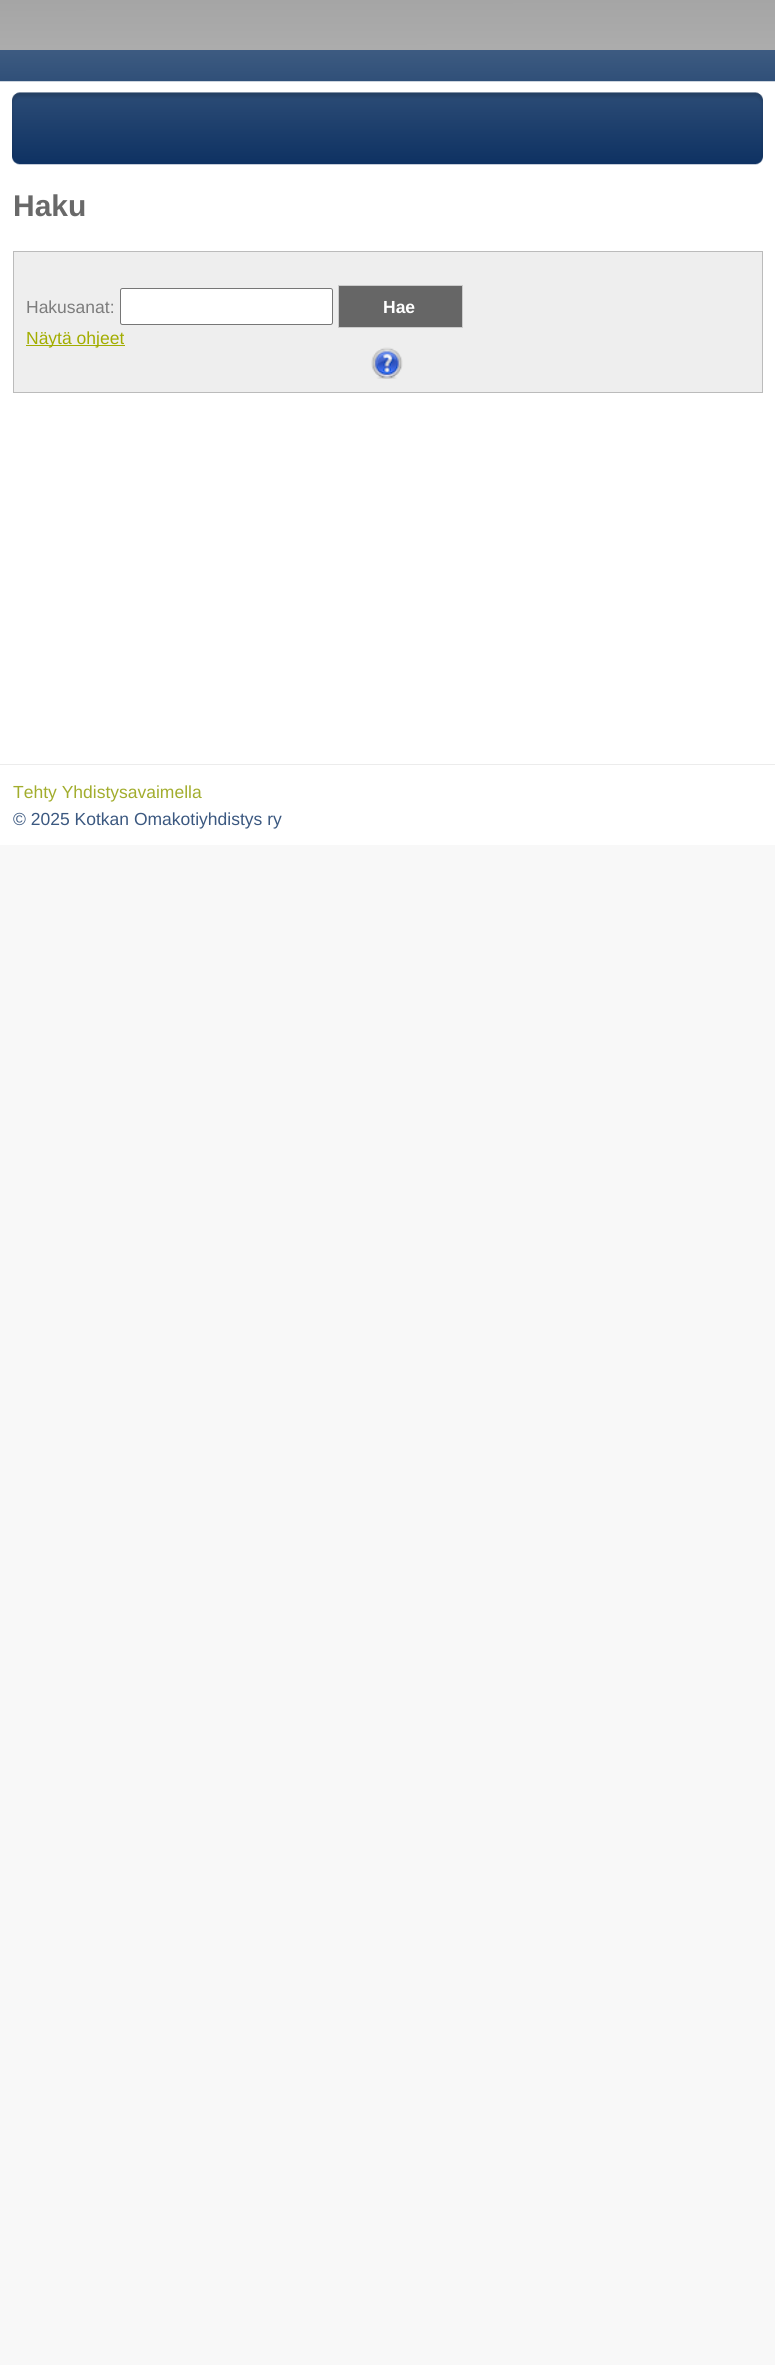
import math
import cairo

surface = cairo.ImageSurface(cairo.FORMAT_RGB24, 775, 2365)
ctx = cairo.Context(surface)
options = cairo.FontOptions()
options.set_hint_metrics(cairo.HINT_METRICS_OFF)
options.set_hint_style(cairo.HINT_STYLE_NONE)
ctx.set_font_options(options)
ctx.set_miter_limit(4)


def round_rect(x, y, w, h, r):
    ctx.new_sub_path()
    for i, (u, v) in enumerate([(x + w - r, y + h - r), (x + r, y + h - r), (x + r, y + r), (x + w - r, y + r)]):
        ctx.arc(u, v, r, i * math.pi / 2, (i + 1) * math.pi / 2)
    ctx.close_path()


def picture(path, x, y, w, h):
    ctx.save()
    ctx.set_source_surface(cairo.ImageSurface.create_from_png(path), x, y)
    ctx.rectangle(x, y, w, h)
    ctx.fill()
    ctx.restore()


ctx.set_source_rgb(1, 1, 1)
ctx.paint()
gradient = cairo.LinearGradient(387, 0, 388, 2365)
gradient.add_color_stop_rgba(0, 0.647, 0.647, 0.647, 1)
gradient.add_color_stop_rgba(0.24, 0.973, 0.973, 0.973, 1)
gradient.add_color_stop_rgba(1, 0.973, 0.973, 0.973, 1)
ctx.set_source(gradient)
ctx.rectangle(0, 0, 775, 2365)
ctx.fill()
gradient = cairo.LinearGradient(388, 50, 388, 199)
gradient.add_color_stop_rgba(0, 0.239, 0.357, 0.506, 1)
gradient.add_color_stop_rgba(1, 0, 0.145, 0.349, 1)
ctx.set_source(gradient)
ctx.rectangle(0, 50, 775, 115)
ctx.fill()
picture("img1.png", 0, 81, 775, 95)
ctx.set_source_rgb(1, 1, 1)
ctx.rectangle(0, 176, 775, 588)
ctx.fill()
ctx.select_font_face("Liberation Sans", cairo.FONT_SLANT_NORMAL, cairo.FONT_WEIGHT_BOLD)
ctx.set_font_size(30)
ctx.set_source_rgb(0.412, 0.412, 0.412)
ctx.move_to(13, 216)
ctx.show_text("Haku")
ctx.set_source_rgb(0.933, 0.933, 0.933)
ctx.rectangle(13.5, 251.5, 749, 141)
ctx.fill_preserve()
ctx.set_source_rgb(0.733, 0.733, 0.733)
ctx.set_line_width(1)
ctx.stroke()
ctx.select_font_face("Liberation Sans")
ctx.set_font_size(17.5)
ctx.set_source_rgb(0.486, 0.486, 0.486)
ctx.move_to(26, 313)
ctx.show_text("Hakusanat:")
ctx.set_source_rgb(1, 1, 1)
round_rect(120.5, 288.5, 212, 36, 2)
ctx.fill_preserve()
ctx.set_source_rgb(0.463, 0.463, 0.463)
ctx.stroke()
ctx.set_source_rgb(0.4, 0.4, 0.4)
ctx.rectangle(338.5, 285.5, 124, 42)
ctx.fill_preserve()
ctx.set_source_rgb(0.8, 0.8, 0.8)
ctx.stroke()
ctx.select_font_face("Liberation Sans", cairo.FONT_SLANT_NORMAL, cairo.FONT_WEIGHT_BOLD)
ctx.set_source_rgb(1, 1, 1)
ctx.move_to(383, 313)
ctx.show_text("Hae")
ctx.set_source_rgb(0.635, 0.678, 0)
ctx.rectangle(26, 345, 99, 1)
ctx.fill()
ctx.select_font_face("Liberation Sans")
ctx.move_to(26, 344)
ctx.show_text("Näytä ohjeet")
picture("img2.png", 371, 347, 32, 32)
ctx.set_source_rgb(1, 1, 1)
ctx.rectangle(0, 765, 775, 80)
ctx.fill()
ctx.set_source_rgb(0.922, 0.922, 0.922)
ctx.rectangle(0, 764, 775, 1)
ctx.fill()
ctx.set_source_rgb(0.635, 0.678, 0.176)
ctx.move_to(13, 798)
ctx.show_text("Tehty Yhdistysavaimella")
ctx.set_source_rgb(0.231, 0.345, 0.502)
ctx.move_to(13, 825)
ctx.show_text("© 2025 Kotkan Omakotiyhdistys ry")
surface.write_to_png("page.png")
